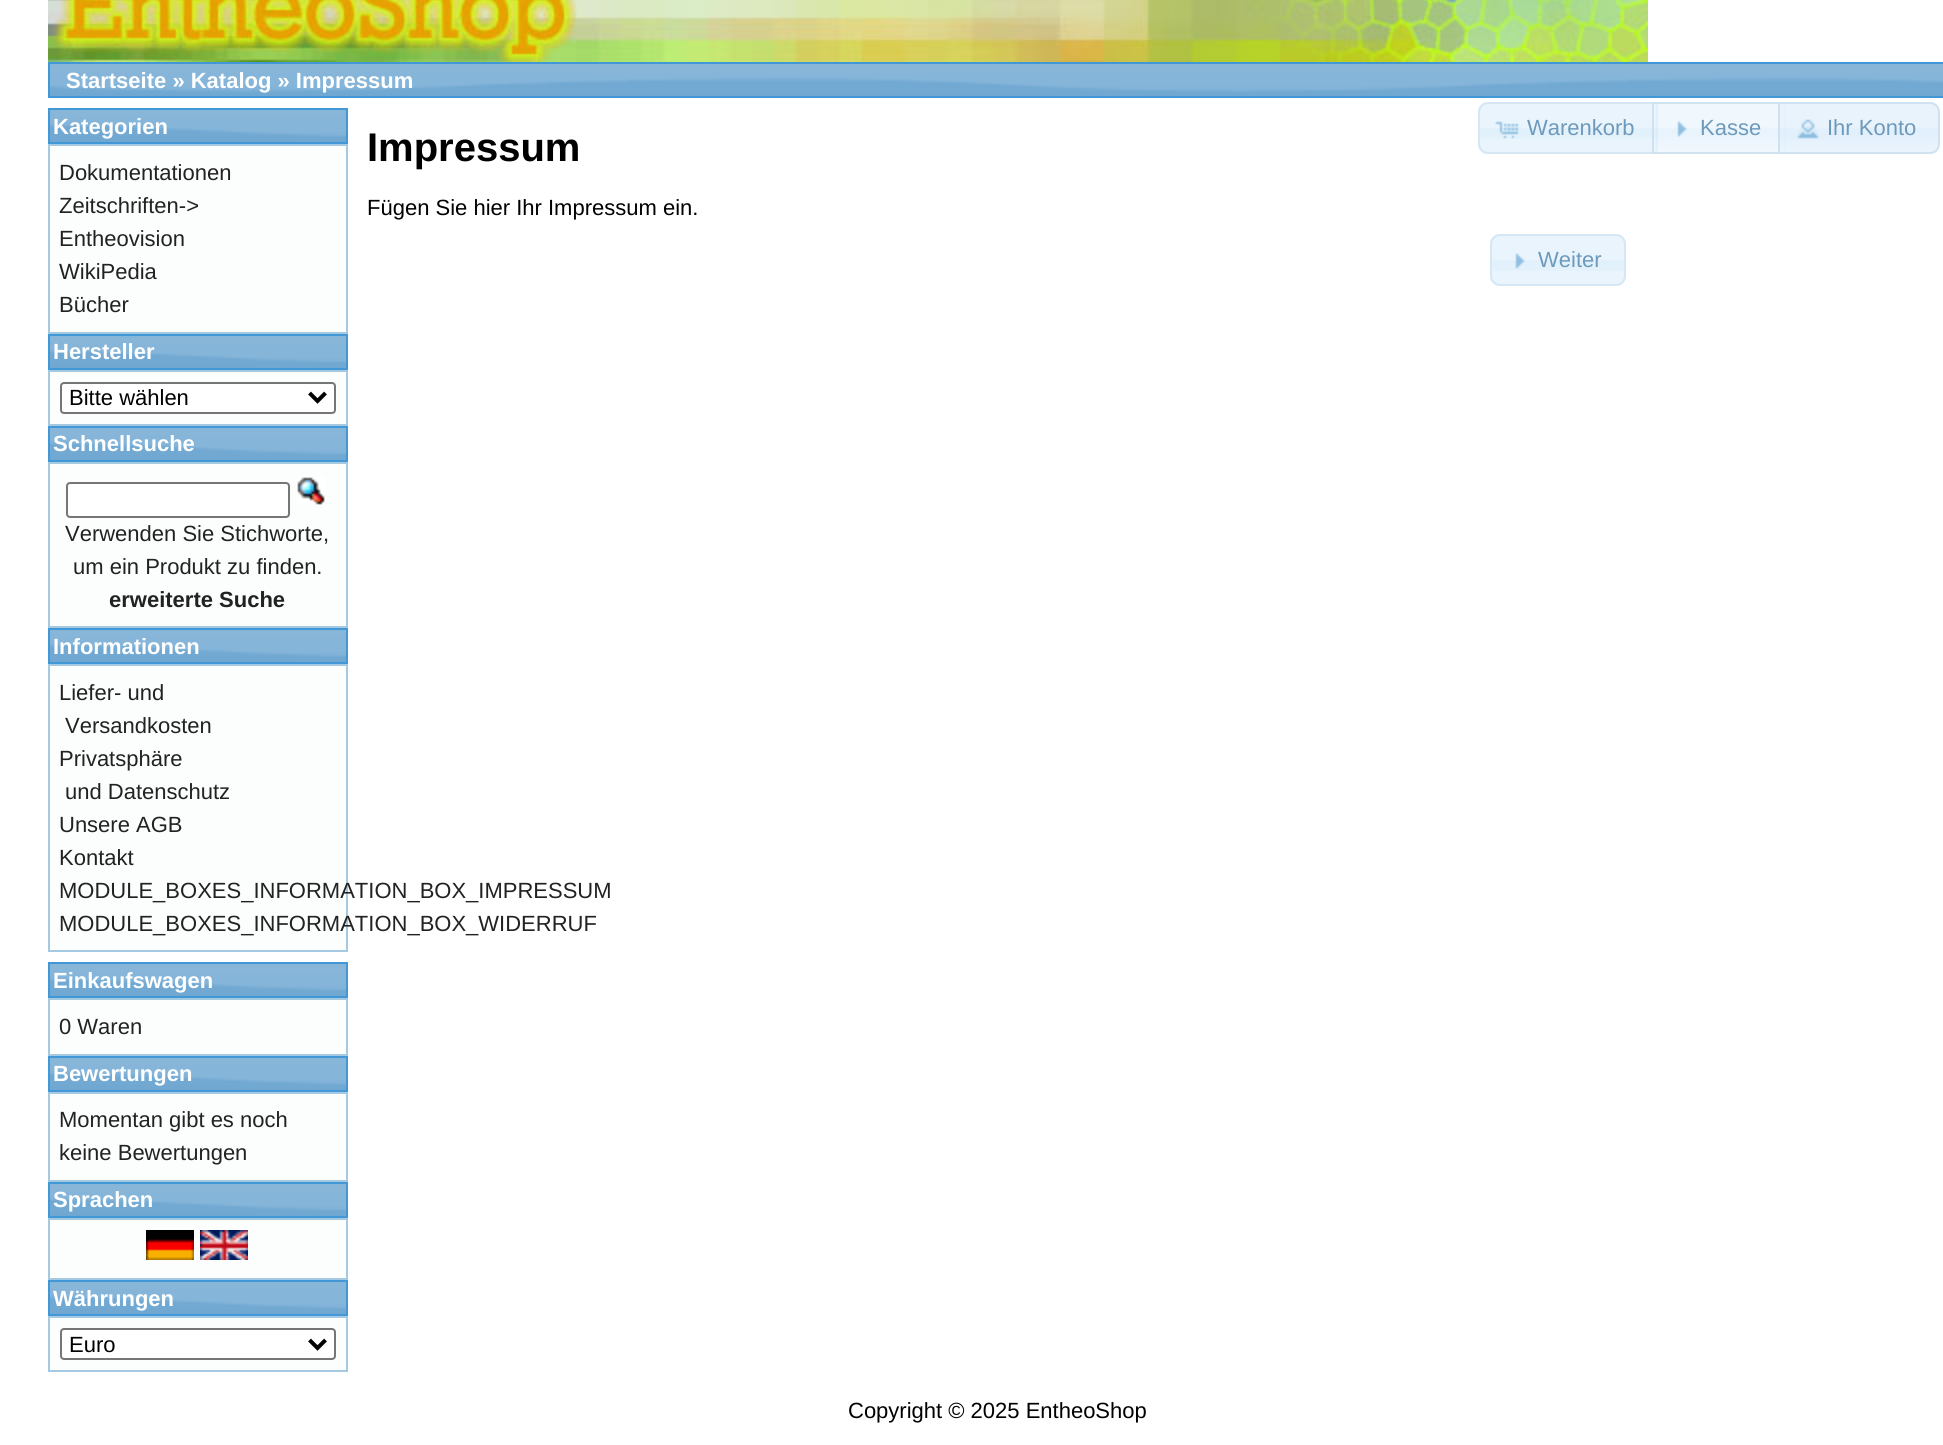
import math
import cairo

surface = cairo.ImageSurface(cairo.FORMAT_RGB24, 1943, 1445)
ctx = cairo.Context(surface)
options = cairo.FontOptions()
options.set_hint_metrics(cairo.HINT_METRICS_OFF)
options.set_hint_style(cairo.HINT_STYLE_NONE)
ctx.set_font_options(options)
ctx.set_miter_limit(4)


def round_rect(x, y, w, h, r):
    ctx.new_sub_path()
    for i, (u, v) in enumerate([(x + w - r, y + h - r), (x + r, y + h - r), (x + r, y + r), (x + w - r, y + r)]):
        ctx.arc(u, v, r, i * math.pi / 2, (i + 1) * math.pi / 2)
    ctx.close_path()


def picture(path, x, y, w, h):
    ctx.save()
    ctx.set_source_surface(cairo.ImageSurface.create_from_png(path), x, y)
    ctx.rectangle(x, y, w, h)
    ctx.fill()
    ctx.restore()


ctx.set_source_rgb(1, 1, 1)
ctx.paint()
picture("img1.png", 50, 64, 1893, 32)
ctx.rectangle(49, 63, 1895, 34)
ctx.set_source_rgb(0.259, 0.592, 0.843)
ctx.stroke()
ctx.select_font_face("Liberation Sans", cairo.FONT_SLANT_NORMAL, cairo.FONT_WEIGHT_BOLD)
ctx.set_font_size(22)
ctx.set_source_rgb(1, 1, 1)
ctx.move_to(66, 88)
ctx.show_text("Startseite » Katalog » Impressum")
picture("img2.png", 50, 110, 296, 32)
ctx.rectangle(49, 109, 298, 34)
ctx.set_source_rgb(0.259, 0.592, 0.843)
ctx.stroke()
ctx.set_source_rgb(1, 1, 1)
ctx.move_to(53, 134)
ctx.show_text("Kategorien")
ctx.set_source_rgb(0.988, 0.992, 0.992)
ctx.rectangle(49, 145, 298, 188)
ctx.fill_preserve()
ctx.set_source_rgb(0.651, 0.788, 0.886)
ctx.stroke()
ctx.select_font_face("Liberation Sans")
ctx.set_source_rgb(0.133, 0.133, 0.133)
ctx.move_to(59, 180)
ctx.show_text("Dokumentationen")
ctx.move_to(59, 213)
ctx.show_text("Zeitschriften->")
ctx.move_to(59, 246)
ctx.show_text("Entheovision")
ctx.move_to(59, 279)
ctx.show_text("WikiPedia")
ctx.move_to(59, 312)
ctx.show_text("Bücher")
picture("img2.png", 50, 336, 296, 32)
ctx.rectangle(49, 335, 298, 34)
ctx.set_source_rgb(0.259, 0.592, 0.843)
ctx.stroke()
ctx.select_font_face("Liberation Sans", cairo.FONT_SLANT_NORMAL, cairo.FONT_WEIGHT_BOLD)
ctx.set_source_rgb(1, 1, 1)
ctx.move_to(53, 359)
ctx.show_text("Hersteller")
ctx.set_source_rgb(0.988, 0.992, 0.992)
ctx.rectangle(49, 371, 298, 54)
ctx.fill_preserve()
ctx.set_source_rgb(0.651, 0.788, 0.886)
ctx.stroke()
ctx.set_source_rgb(1, 1, 1)
round_rect(61, 383, 274, 30, 3)
ctx.fill_preserve()
ctx.set_source_rgb(0.463, 0.463, 0.463)
ctx.stroke()
ctx.new_path()
ctx.move_to(309.5, 393)
ctx.line_to(317.5, 401)
ctx.line_to(325.5, 393)
ctx.set_source_rgb(0, 0, 0)
ctx.set_line_width(4)
ctx.stroke()
ctx.select_font_face("Liberation Sans")
ctx.move_to(69, 405)
ctx.show_text("Bitte wählen")
picture("img2.png", 50, 428, 296, 32)
ctx.rectangle(49, 427, 298, 34)
ctx.set_source_rgb(0.259, 0.592, 0.843)
ctx.set_line_width(2)
ctx.stroke()
ctx.select_font_face("Liberation Sans", cairo.FONT_SLANT_NORMAL, cairo.FONT_WEIGHT_BOLD)
ctx.set_source_rgb(1, 1, 1)
ctx.move_to(53, 451)
ctx.show_text("Schnellsuche")
ctx.set_source_rgb(0.988, 0.992, 0.992)
ctx.rectangle(49, 463, 298, 164)
ctx.fill_preserve()
ctx.set_source_rgb(0.651, 0.788, 0.886)
ctx.stroke()
ctx.set_source_rgb(1, 1, 1)
round_rect(67, 483, 222, 34, 3)
ctx.fill_preserve()
ctx.set_source_rgb(0.463, 0.463, 0.463)
ctx.stroke()
picture("img3.png", 297, 477, 28, 28)
ctx.select_font_face("Liberation Sans")
ctx.set_source_rgb(0.133, 0.133, 0.133)
ctx.move_to(65, 541)
ctx.show_text("Verwenden Sie Stichworte,")
ctx.move_to(73, 574)
ctx.show_text("um ein Produkt zu finden.")
ctx.select_font_face("Liberation Sans", cairo.FONT_SLANT_NORMAL, cairo.FONT_WEIGHT_BOLD)
ctx.move_to(109, 607)
ctx.show_text("erweiterte Suche")
picture("img2.png", 50, 630, 296, 32)
ctx.rectangle(49, 629, 298, 34)
ctx.set_source_rgb(0.259, 0.592, 0.843)
ctx.stroke()
ctx.set_source_rgb(1, 1, 1)
ctx.move_to(53, 654)
ctx.show_text("Informationen")
ctx.set_source_rgb(0.988, 0.992, 0.992)
ctx.rectangle(49, 665, 298, 286)
ctx.fill_preserve()
ctx.set_source_rgb(0.651, 0.788, 0.886)
ctx.stroke()
ctx.select_font_face("Liberation Sans")
ctx.set_source_rgb(0.133, 0.133, 0.133)
ctx.move_to(59, 700)
ctx.show_text("Liefer- und")
ctx.move_to(65, 733)
ctx.show_text("Versandkosten")
ctx.move_to(59, 766)
ctx.show_text("Privatsphäre")
ctx.move_to(65, 799)
ctx.show_text("und Datenschutz")
ctx.move_to(59, 832)
ctx.show_text("Unsere AGB")
ctx.move_to(59, 865)
ctx.show_text("Kontakt")
ctx.move_to(59, 898)
ctx.show_text("MODULE_BOXES_INFORMATION_BOX_IMPRESSUM")
ctx.move_to(59, 931)
ctx.show_text("MODULE_BOXES_INFORMATION_BOX_WIDERRUF")
picture("img4.png", 48, 0, 1600, 62)
ctx.set_source_rgb(0.914, 0.957, 0.992)
ctx.new_path()
ctx.move_to(1488, 102)
ctx.line_to(1658, 102)
ctx.line_to(1658, 154)
ctx.line_to(1488, 154)
ctx.curve_to(1482.5, 154, 1478, 149.5, 1478, 144)
ctx.line_to(1478, 112)
ctx.curve_to(1478, 106.5, 1482.5, 102, 1488, 102)
ctx.close_path()
ctx.fill()
picture("img5.png", 1480, 128, 176, 11)
ctx.new_path()
ctx.move_to(1488, 103)
ctx.line_to(1657, 103)
ctx.line_to(1657, 153)
ctx.line_to(1488, 153)
ctx.curve_to(1483, 153, 1479, 149, 1479, 144)
ctx.line_to(1479, 112)
ctx.curve_to(1479, 107, 1483, 103, 1488, 103)
ctx.close_path()
ctx.set_source_rgb(0.839, 0.902, 0.949)
ctx.stroke()
picture("img6.png", 1495, 121, 24, 18)
ctx.set_source_rgb(0.427, 0.604, 0.733)
ctx.move_to(1527, 135)
ctx.show_text("Warenkorb")
picture("img7.png", 1652, 102, 134, 52)
ctx.rectangle(1653, 103, 132, 50)
ctx.set_source_rgba(0.773, 0.859, 0.925, 0.7)
ctx.stroke()
picture("img8.png", 1677, 121, 10, 16)
ctx.set_source_rgb(0.427, 0.604, 0.733)
ctx.move_to(1700, 135)
ctx.show_text("Kasse")
ctx.set_source_rgba(0.875, 0.937, 0.988, 0.7)
ctx.new_path()
ctx.move_to(1778, 102)
ctx.line_to(1930, 102)
ctx.curve_to(1935.5, 102, 1940, 106.5, 1940, 112)
ctx.line_to(1940, 144)
ctx.curve_to(1940, 149.5, 1935.5, 154, 1930, 154)
ctx.line_to(1778, 154)
ctx.close_path()
ctx.fill()
picture("img9.png", 1778, 102, 162, 52)
ctx.new_path()
ctx.move_to(1779, 103)
ctx.line_to(1930, 103)
ctx.curve_to(1935, 103, 1939, 107, 1939, 112)
ctx.line_to(1939, 144)
ctx.curve_to(1939, 149, 1935, 153, 1930, 153)
ctx.line_to(1779, 153)
ctx.close_path()
ctx.set_source_rgba(0.773, 0.859, 0.925, 0.7)
ctx.stroke()
picture("img10.png", 1797, 119, 22, 20)
ctx.set_source_rgb(0.427, 0.604, 0.733)
ctx.move_to(1827, 135)
ctx.show_text("Ihr Konto")
ctx.select_font_face("Liberation Sans", cairo.FONT_SLANT_NORMAL, cairo.FONT_WEIGHT_BOLD)
ctx.set_font_size(40)
ctx.set_source_rgb(0, 0, 0)
ctx.move_to(367, 161)
ctx.show_text("Impressum")
ctx.select_font_face("Liberation Sans")
ctx.set_font_size(22)
ctx.move_to(367, 215)
ctx.show_text("Fügen Sie hier Ihr Impressum ein.")
ctx.set_source_rgb(0.914, 0.957, 0.992)
round_rect(1490, 234, 136, 52, 10)
ctx.fill()
picture("img11.png", 1492, 260, 132, 11)
round_rect(1491, 235, 134, 50, 9)
ctx.set_source_rgb(0.839, 0.902, 0.949)
ctx.stroke()
picture("img12.png", 1515, 253, 10, 16)
ctx.set_source_rgb(0.427, 0.604, 0.733)
ctx.move_to(1538, 267)
ctx.show_text("Weiter")
picture("img2.png", 50, 964, 296, 32)
ctx.rectangle(49, 963, 298, 34)
ctx.set_source_rgb(0.259, 0.592, 0.843)
ctx.stroke()
ctx.select_font_face("Liberation Sans", cairo.FONT_SLANT_NORMAL, cairo.FONT_WEIGHT_BOLD)
ctx.set_source_rgb(1, 1, 1)
ctx.move_to(53, 988)
ctx.show_text("Einkaufswagen")
ctx.set_source_rgb(0.988, 0.992, 0.992)
ctx.rectangle(49, 999, 298, 56)
ctx.fill_preserve()
ctx.set_source_rgb(0.651, 0.788, 0.886)
ctx.stroke()
ctx.select_font_face("Liberation Sans")
ctx.set_source_rgb(0.133, 0.133, 0.133)
ctx.move_to(59, 1034)
ctx.show_text("0 Waren")
picture("img2.png", 50, 1058, 296, 32)
ctx.rectangle(49, 1057, 298, 34)
ctx.set_source_rgb(0.259, 0.592, 0.843)
ctx.stroke()
ctx.select_font_face("Liberation Sans", cairo.FONT_SLANT_NORMAL, cairo.FONT_WEIGHT_BOLD)
ctx.set_source_rgb(1, 1, 1)
ctx.move_to(53, 1081)
ctx.show_text("Bewertungen")
ctx.set_source_rgb(0.988, 0.992, 0.992)
ctx.rectangle(49, 1093, 298, 88)
ctx.fill_preserve()
ctx.set_source_rgb(0.651, 0.788, 0.886)
ctx.stroke()
ctx.select_font_face("Liberation Sans")
ctx.set_source_rgb(0.133, 0.133, 0.133)
ctx.move_to(59, 1127)
ctx.show_text("Momentan gibt es noch")
ctx.move_to(59, 1160)
ctx.show_text("keine Bewertungen")
picture("img2.png", 50, 1184, 296, 32)
ctx.rectangle(49, 1183, 298, 34)
ctx.set_source_rgb(0.259, 0.592, 0.843)
ctx.stroke()
ctx.select_font_face("Liberation Sans", cairo.FONT_SLANT_NORMAL, cairo.FONT_WEIGHT_BOLD)
ctx.set_source_rgb(1, 1, 1)
ctx.move_to(53, 1207)
ctx.show_text("Sprachen")
ctx.set_source_rgb(0.988, 0.992, 0.992)
ctx.rectangle(49, 1219, 298, 60)
ctx.fill_preserve()
ctx.set_source_rgb(0.651, 0.788, 0.886)
ctx.stroke()
picture("img13.png", 146, 1230, 48, 30)
picture("img14.png", 200, 1230, 48, 30)
picture("img2.png", 50, 1282, 296, 32)
ctx.rectangle(49, 1281, 298, 34)
ctx.set_source_rgb(0.259, 0.592, 0.843)
ctx.stroke()
ctx.set_source_rgb(1, 1, 1)
ctx.move_to(53, 1306)
ctx.show_text("Währungen")
ctx.set_source_rgb(0.988, 0.992, 0.992)
ctx.rectangle(49, 1317, 298, 54)
ctx.fill_preserve()
ctx.set_source_rgb(0.651, 0.788, 0.886)
ctx.stroke()
ctx.set_source_rgb(1, 1, 1)
round_rect(61, 1329, 274, 30, 3)
ctx.fill_preserve()
ctx.set_source_rgb(0.463, 0.463, 0.463)
ctx.stroke()
ctx.new_path()
ctx.move_to(309.5, 1340)
ctx.line_to(317.5, 1348)
ctx.line_to(325.5, 1340)
ctx.set_source_rgb(0, 0, 0)
ctx.set_line_width(4)
ctx.stroke()
ctx.select_font_face("Liberation Sans")
ctx.move_to(69, 1352)
ctx.show_text("Euro")
ctx.move_to(848, 1418)
ctx.show_text("Copyright © 2025 EntheoShop")
surface.write_to_png("page.png")
